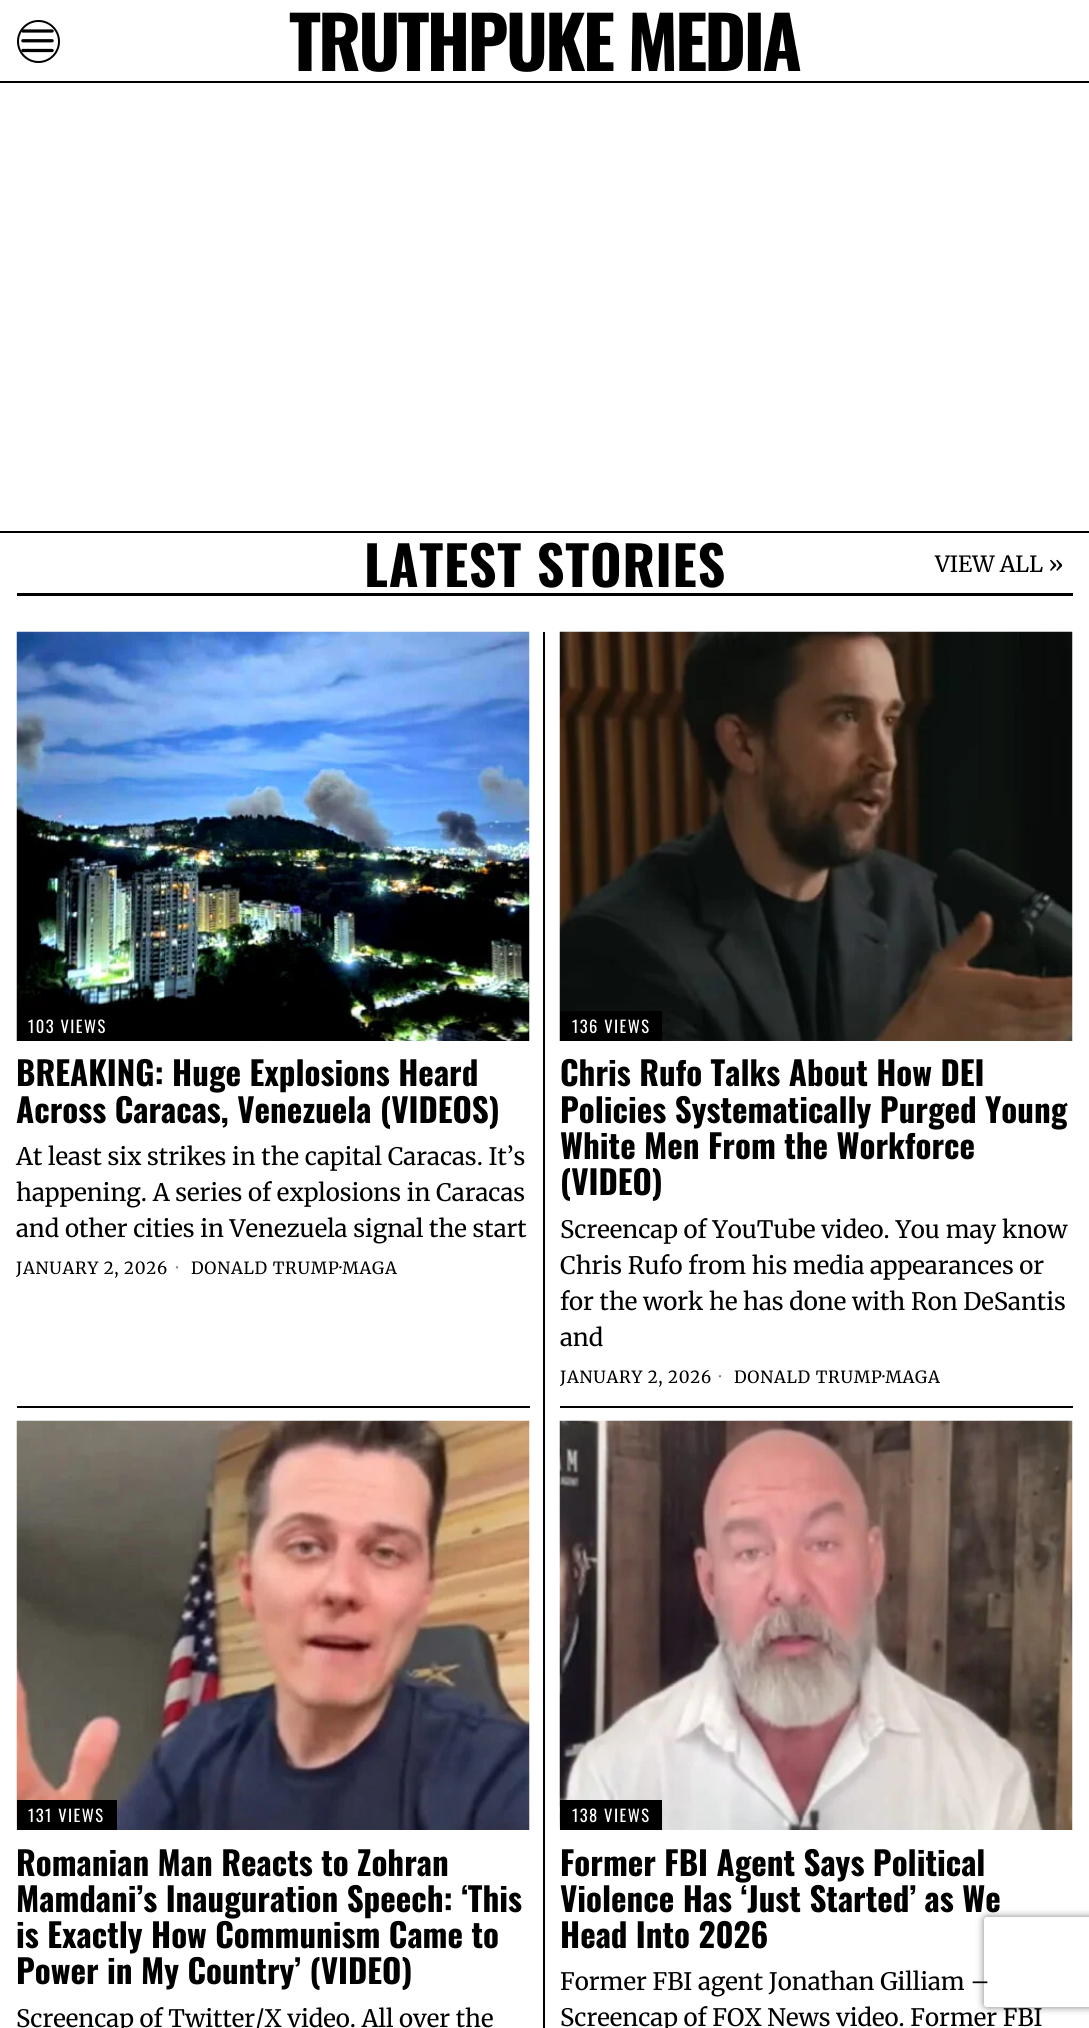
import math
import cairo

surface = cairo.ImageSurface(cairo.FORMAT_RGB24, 1089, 2028)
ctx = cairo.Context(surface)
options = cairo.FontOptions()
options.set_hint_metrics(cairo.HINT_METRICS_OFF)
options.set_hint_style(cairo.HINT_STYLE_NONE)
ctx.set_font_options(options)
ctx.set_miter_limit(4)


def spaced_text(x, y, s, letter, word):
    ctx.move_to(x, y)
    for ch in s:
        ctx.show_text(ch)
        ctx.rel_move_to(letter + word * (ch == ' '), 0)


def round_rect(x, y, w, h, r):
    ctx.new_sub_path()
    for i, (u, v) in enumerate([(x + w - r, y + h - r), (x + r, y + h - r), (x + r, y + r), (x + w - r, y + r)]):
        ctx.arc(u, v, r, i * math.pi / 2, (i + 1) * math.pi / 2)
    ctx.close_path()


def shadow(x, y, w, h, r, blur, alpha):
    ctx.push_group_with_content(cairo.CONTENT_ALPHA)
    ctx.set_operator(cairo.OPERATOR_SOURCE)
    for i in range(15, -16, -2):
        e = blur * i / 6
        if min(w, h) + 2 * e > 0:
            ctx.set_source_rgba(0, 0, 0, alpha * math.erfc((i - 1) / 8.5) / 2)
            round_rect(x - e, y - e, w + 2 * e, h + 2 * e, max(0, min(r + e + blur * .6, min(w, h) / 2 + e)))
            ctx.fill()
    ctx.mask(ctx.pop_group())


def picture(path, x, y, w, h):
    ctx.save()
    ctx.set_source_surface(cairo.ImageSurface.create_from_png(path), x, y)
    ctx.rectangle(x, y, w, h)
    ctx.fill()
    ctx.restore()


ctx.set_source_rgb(1, 1, 1)
ctx.paint()
ctx.set_source_rgb(0, 0, 0)
ctx.rectangle(0, 81, 1089, 2)
ctx.fill()
ctx.arc(38.5, 41.5, 20.5, 0, 2 * math.pi)
ctx.stroke()
picture("img1.png", 21, 29, 33, 24)
ctx.select_font_face("Oswald", cairo.FONT_SLANT_NORMAL, cairo.FONT_WEIGHT_BOLD)
ctx.set_font_size(72)
spaced_text(289, 71, "TRUTHPUKE MEDIA", -3, 0)
ctx.rectangle(0, 531, 1089, 2)
ctx.fill()
ctx.rectangle(17, 593, 1056, 3)
ctx.fill()
ctx.set_font_size(54)
spaced_text(364, 587, "LATEST STORIES", 0.75, 0)
ctx.select_font_face("Merriweather")
ctx.set_font_size(22.25)
ctx.move_to(935, 572)
ctx.show_text("VIEW ALL »")
picture("img2.png", 16, 631, 514, 410)
ctx.select_font_face("Oswald")
ctx.set_font_size(16.5)
ctx.set_source_rgb(1, 1, 1)
spaced_text(28, 1033, "103 VIEWS", 1.5, 0)
ctx.select_font_face("Oswald", cairo.FONT_SLANT_NORMAL, cairo.FONT_WEIGHT_BOLD)
ctx.set_font_size(33)
ctx.set_source_rgb(0, 0, 0)
ctx.move_to(16, 1086)
ctx.show_text("BREAKING: Huge Explosions Heard")
ctx.move_to(16, 1123)
ctx.show_text("Across Caracas, Venezuela (VIDEOS)")
ctx.select_font_face("Merriweather")
ctx.set_font_size(24)
ctx.move_to(16, 1165)
ctx.show_text("At least six strikes in the capital Caracas. It’s")
ctx.move_to(16, 1201)
ctx.show_text("happening. A series of explosions in Caracas")
ctx.move_to(16, 1237)
ctx.show_text("and other cities in Venezuela signal the start")
ctx.set_font_size(16.75)
spaced_text(16, 1274, "JANUARY 2, 2026", 0.75, 0)
ctx.set_source_rgb(0.502, 0.502, 0.502)
spaced_text(176, 1274, "·", 0.75, 0)
ctx.set_source_rgb(0, 0, 0)
spaced_text(191, 1274, "DONALD TRUMP·MAGA", 0.75, 0)
ctx.rectangle(543, 632, 2, 1396)
ctx.fill()
picture("img3.png", 559, 631, 514, 410)
ctx.rectangle(560, 1011, 102, 30)
ctx.fill()
ctx.select_font_face("Oswald")
ctx.set_font_size(16.5)
ctx.set_source_rgb(1, 1, 1)
spaced_text(572, 1033, "136 VIEWS", 1.5, 0)
ctx.select_font_face("Oswald", cairo.FONT_SLANT_NORMAL, cairo.FONT_WEIGHT_BOLD)
ctx.set_font_size(33)
ctx.set_source_rgb(0, 0, 0)
ctx.move_to(560, 1086)
ctx.show_text("Chris Rufo Talks About How DEI")
ctx.move_to(560, 1123)
ctx.show_text("Policies Systematically Purged Young")
ctx.move_to(560, 1159)
ctx.show_text("White Men From the Workforce")
ctx.move_to(560, 1195)
ctx.show_text("(VIDEO)")
ctx.select_font_face("Merriweather")
ctx.set_font_size(24)
ctx.move_to(560, 1238)
ctx.show_text("Screencap of YouTube video. You may know")
ctx.move_to(560, 1274)
ctx.show_text("Chris Rufo from his media appearances or")
ctx.move_to(560, 1310)
ctx.show_text("for the work he has done with Ron DeSantis")
ctx.move_to(560, 1346)
ctx.show_text("and")
ctx.set_font_size(16.75)
spaced_text(560, 1383, "JANUARY 2, 2026", 0.75, 0)
ctx.set_source_rgb(0.502, 0.502, 0.502)
spaced_text(719, 1383, "·", 0.75, 0)
ctx.set_source_rgb(0, 0, 0)
spaced_text(734, 1383, "DONALD TRUMP·MAGA", 0.75, 0)
ctx.rectangle(17, 1406, 513, 2)
ctx.fill()
picture("img4.png", 16, 1420, 514, 410)
ctx.rectangle(17, 1800, 100, 30)
ctx.fill()
ctx.select_font_face("Oswald")
ctx.set_font_size(16.5)
ctx.set_source_rgb(1, 1, 1)
spaced_text(28, 1822, "131 VIEWS", 1.5, 0)
ctx.select_font_face("Oswald", cairo.FONT_SLANT_NORMAL, cairo.FONT_WEIGHT_BOLD)
ctx.set_font_size(33)
ctx.set_source_rgb(0, 0, 0)
ctx.move_to(16, 1876)
ctx.show_text("Romanian Man Reacts to Zohran")
ctx.move_to(16, 1912)
ctx.show_text("Mamdani’s Inauguration Speech: ‘This")
ctx.move_to(16, 1948)
ctx.show_text("is Exactly How Communism Came to")
ctx.move_to(16, 1984)
ctx.show_text("Power in My Country’ (VIDEO)")
ctx.select_font_face("Merriweather")
ctx.set_font_size(24)
ctx.move_to(16, 2027)
ctx.show_text("Screencap of Twitter/X video. All over the")
ctx.rectangle(560, 1406, 513, 2)
ctx.fill()
picture("img5.png", 559, 1420, 514, 410)
ctx.rectangle(560, 1800, 102, 30)
ctx.fill()
ctx.select_font_face("Oswald")
ctx.set_font_size(16.5)
ctx.set_source_rgb(1, 1, 1)
spaced_text(572, 1822, "138 VIEWS", 1.5, 0)
ctx.select_font_face("Oswald", cairo.FONT_SLANT_NORMAL, cairo.FONT_WEIGHT_BOLD)
ctx.set_font_size(33)
ctx.set_source_rgb(0, 0, 0)
ctx.move_to(560, 1876)
ctx.show_text("Former FBI Agent Says Political")
ctx.save()
ctx.set_fill_rule(cairo.FILL_RULE_EVEN_ODD)
ctx.new_path()
ctx.move_to(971, 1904)
ctx.line_to(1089, 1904)
ctx.line_to(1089, 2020)
ctx.line_to(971, 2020)
ctx.close_path()
ctx.move_to(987, 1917)
ctx.line_to(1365, 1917)
ctx.curve_to(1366.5, 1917, 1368, 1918.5, 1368, 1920)
ctx.line_to(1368, 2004)
ctx.curve_to(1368, 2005.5, 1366.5, 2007, 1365, 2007)
ctx.line_to(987, 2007)
ctx.curve_to(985.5, 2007, 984, 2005.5, 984, 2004)
ctx.line_to(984, 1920)
ctx.curve_to(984, 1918.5, 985.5, 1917, 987, 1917)
ctx.close_path()
ctx.clip()
ctx.set_source_rgb(0.502, 0.502, 0.502)
shadow(984, 1917, 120, 90, 3, 4, 1)
ctx.restore()
ctx.move_to(560, 1912)
ctx.show_text("Violence Has ‘Just Started’ as We")
ctx.move_to(560, 1948)
ctx.show_text("Head Into 2026")
ctx.select_font_face("Merriweather")
ctx.set_font_size(24)
ctx.move_to(560, 1990)
ctx.show_text("Former FBI agent Jonathan Gilliam –")
ctx.move_to(560, 2026)
ctx.show_text("Screencap of FOX News video. Former FBI")
surface.write_to_png("page.png")
